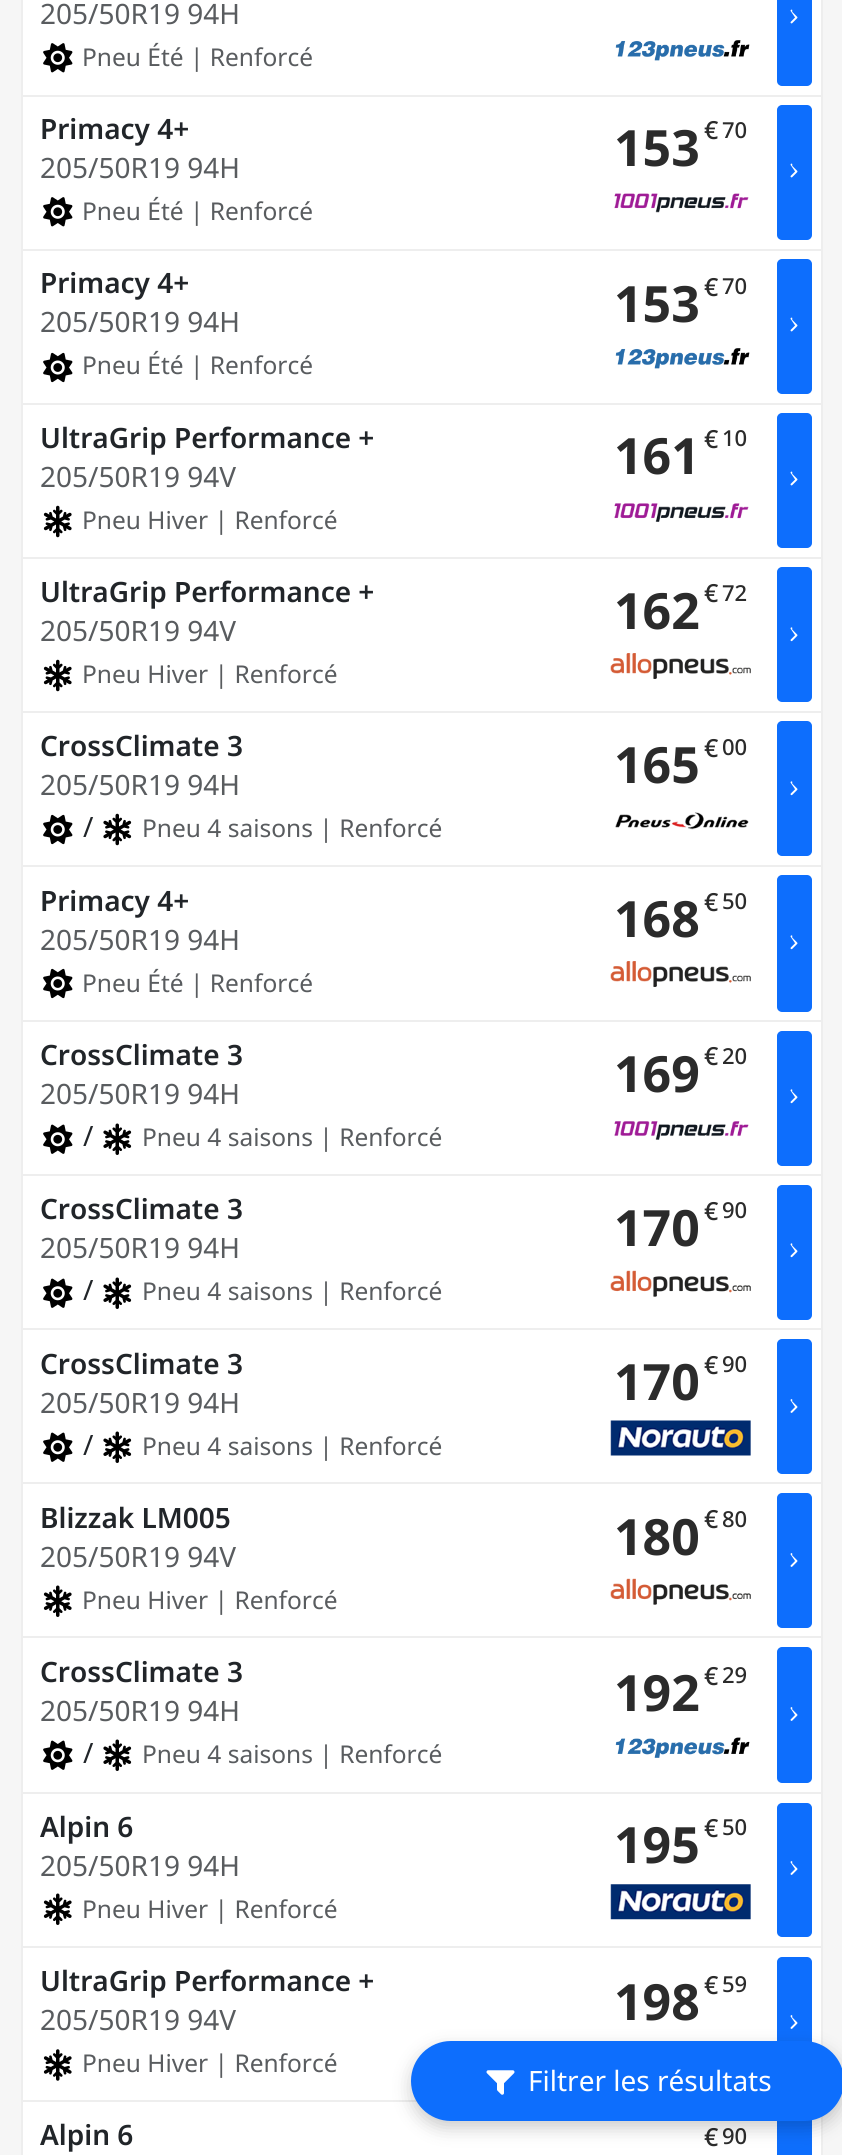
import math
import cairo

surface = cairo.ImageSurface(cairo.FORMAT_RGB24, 842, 2155)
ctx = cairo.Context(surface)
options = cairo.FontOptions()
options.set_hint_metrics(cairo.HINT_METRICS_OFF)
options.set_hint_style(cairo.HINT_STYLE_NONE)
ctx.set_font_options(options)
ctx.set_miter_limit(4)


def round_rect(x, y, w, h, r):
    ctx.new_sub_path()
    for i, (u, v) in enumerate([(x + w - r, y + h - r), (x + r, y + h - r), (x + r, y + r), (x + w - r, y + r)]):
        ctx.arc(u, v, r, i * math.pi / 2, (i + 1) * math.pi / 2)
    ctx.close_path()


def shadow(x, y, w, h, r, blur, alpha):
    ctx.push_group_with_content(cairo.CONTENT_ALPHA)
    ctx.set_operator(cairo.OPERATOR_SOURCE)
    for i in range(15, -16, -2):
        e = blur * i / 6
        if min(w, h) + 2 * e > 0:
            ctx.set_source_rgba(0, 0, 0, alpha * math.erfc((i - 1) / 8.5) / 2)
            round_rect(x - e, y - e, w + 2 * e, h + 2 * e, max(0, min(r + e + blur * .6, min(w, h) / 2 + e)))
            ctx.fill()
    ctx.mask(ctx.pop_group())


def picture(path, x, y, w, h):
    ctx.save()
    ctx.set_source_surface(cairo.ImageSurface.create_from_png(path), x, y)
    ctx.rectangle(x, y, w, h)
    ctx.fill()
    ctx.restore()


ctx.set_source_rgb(0.961, 0.961, 0.961)
ctx.paint()
ctx.set_source_rgb(1, 1, 1)
ctx.rectangle(23, 0, 798, 95)
ctx.fill()
ctx.set_source_rgb(0.933, 0.933, 0.933)
ctx.rectangle(821, 0, 2, 95)
ctx.fill()
ctx.rectangle(21, 0, 2, 95)
ctx.fill()
ctx.select_font_face("Noto Sans")
ctx.set_font_size(28)
ctx.set_source_rgb(0.349, 0.361, 0.373)
ctx.move_to(40, 24)
ctx.show_text("205/50R19 94H")
picture("img1.png", 43, 43, 30, 30)
ctx.set_font_size(24.5)
ctx.move_to(82, 66)
ctx.show_text("Pneu Été | Renforcé")
picture("img2.png", 615, 40, 135, 21)
ctx.set_source_rgb(0.051, 0.431, 0.992)
round_rect(778, -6, 33, 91, 4)
ctx.fill_preserve()
ctx.stroke()
picture("img3.png", 790, 9, 8, 15)
ctx.set_source_rgb(1, 1, 1)
ctx.rectangle(23, 97, 798, 152)
ctx.fill()
ctx.set_source_rgb(0.933, 0.933, 0.933)
ctx.rectangle(21, 95, 802, 2)
ctx.fill()
ctx.rectangle(821, 95, 2, 154)
ctx.fill()
ctx.rectangle(21, 95, 2, 154)
ctx.fill()
ctx.select_font_face("Noto Sans SemiBold")
ctx.set_font_size(28)
ctx.set_source_rgb(0.129, 0.145, 0.161)
ctx.move_to(40, 139)
ctx.show_text("Primacy 4+")
ctx.select_font_face("Noto Sans")
ctx.set_source_rgb(0.349, 0.361, 0.373)
ctx.move_to(40, 178)
ctx.show_text("205/50R19 94H")
picture("img1.png", 43, 197, 30, 30)
ctx.set_font_size(24.5)
ctx.move_to(82, 220)
ctx.show_text("Pneu Été | Renforcé")
ctx.select_font_face("Noto Sans", cairo.FONT_SLANT_NORMAL, cairo.FONT_WEIGHT_BOLD)
ctx.set_font_size(50)
ctx.set_source_rgb(0.169, 0.169, 0.169)
ctx.move_to(614, 166)
ctx.show_text("153")
ctx.select_font_face("Noto Sans Medium")
ctx.set_font_size(25)
ctx.move_to(704, 139)
ctx.show_text("€")
ctx.set_font_size(22)
ctx.move_to(722, 138)
ctx.show_text("70")
picture("img4.png", 614, 193, 135, 20)
ctx.set_source_rgb(0.051, 0.431, 0.992)
round_rect(778, 106, 33, 133, 4)
ctx.fill_preserve()
ctx.stroke()
picture("img3.png", 790, 163, 8, 15)
ctx.set_source_rgb(1, 1, 1)
ctx.rectangle(23, 251, 798, 152)
ctx.fill()
ctx.set_source_rgb(0.933, 0.933, 0.933)
ctx.rectangle(21, 249, 802, 2)
ctx.fill()
ctx.rectangle(821, 249, 2, 154)
ctx.fill()
ctx.rectangle(21, 249, 2, 154)
ctx.fill()
ctx.select_font_face("Noto Sans SemiBold")
ctx.set_font_size(28)
ctx.set_source_rgb(0.129, 0.145, 0.161)
ctx.move_to(40, 293)
ctx.show_text("Primacy 4+")
ctx.select_font_face("Noto Sans")
ctx.set_source_rgb(0.349, 0.361, 0.373)
ctx.move_to(40, 332)
ctx.show_text("205/50R19 94H")
picture("img5.png", 43, 352, 30, 31)
ctx.set_font_size(24.5)
ctx.move_to(82, 374)
ctx.show_text("Pneu Été | Renforcé")
ctx.select_font_face("Noto Sans", cairo.FONT_SLANT_NORMAL, cairo.FONT_WEIGHT_BOLD)
ctx.set_font_size(50)
ctx.set_source_rgb(0.169, 0.169, 0.169)
ctx.move_to(614, 322)
ctx.show_text("153")
ctx.select_font_face("Noto Sans Medium")
ctx.set_font_size(25)
ctx.move_to(704, 296)
ctx.show_text("€")
ctx.set_font_size(22)
ctx.move_to(722, 294)
ctx.show_text("70")
picture("img2.png", 615, 348, 135, 21)
ctx.set_source_rgb(0.051, 0.431, 0.992)
round_rect(778, 260, 33, 133, 4)
ctx.fill_preserve()
ctx.stroke()
picture("img3.png", 790, 317, 8, 15)
ctx.set_source_rgb(1, 1, 1)
ctx.rectangle(23, 405, 798, 152)
ctx.fill()
ctx.set_source_rgb(0.933, 0.933, 0.933)
ctx.rectangle(21, 403, 802, 2)
ctx.fill()
ctx.rectangle(821, 403, 2, 154)
ctx.fill()
ctx.rectangle(21, 403, 2, 154)
ctx.fill()
ctx.select_font_face("Noto Sans SemiBold")
ctx.set_font_size(28)
ctx.set_source_rgb(0.129, 0.145, 0.161)
ctx.move_to(40, 448)
ctx.show_text("UltraGrip Performance +")
ctx.select_font_face("Noto Sans")
ctx.set_source_rgb(0.349, 0.361, 0.373)
ctx.move_to(40, 487)
ctx.show_text("205/50R19 94V")
picture("img6.png", 43, 505, 29, 33)
ctx.set_font_size(24.5)
ctx.move_to(82, 529)
ctx.show_text("Pneu Hiver | Renforcé")
ctx.select_font_face("Noto Sans", cairo.FONT_SLANT_NORMAL, cairo.FONT_WEIGHT_BOLD)
ctx.set_font_size(50)
ctx.set_source_rgb(0.169, 0.169, 0.169)
ctx.move_to(614, 474)
ctx.show_text("161")
ctx.select_font_face("Noto Sans Medium")
ctx.set_font_size(25)
ctx.move_to(704, 448)
ctx.show_text("€")
ctx.set_font_size(22)
ctx.move_to(722, 446)
ctx.show_text("10")
picture("img7.png", 614, 503, 135, 19)
ctx.set_source_rgb(0.051, 0.431, 0.992)
round_rect(778, 414, 33, 133, 4)
ctx.fill_preserve()
ctx.stroke()
picture("img3.png", 790, 471, 8, 15)
ctx.set_source_rgb(1, 1, 1)
ctx.rectangle(23, 559, 798, 152)
ctx.fill()
ctx.set_source_rgb(0.933, 0.933, 0.933)
ctx.rectangle(21, 557, 802, 2)
ctx.fill()
ctx.rectangle(821, 557, 2, 154)
ctx.fill()
ctx.rectangle(21, 557, 2, 154)
ctx.fill()
ctx.select_font_face("Noto Sans SemiBold")
ctx.set_font_size(28)
ctx.set_source_rgb(0.129, 0.145, 0.161)
ctx.move_to(40, 602)
ctx.show_text("UltraGrip Performance +")
ctx.select_font_face("Noto Sans")
ctx.set_source_rgb(0.349, 0.361, 0.373)
ctx.move_to(40, 641)
ctx.show_text("205/50R19 94V")
picture("img6.png", 43, 659, 29, 33)
ctx.set_font_size(24.5)
ctx.move_to(82, 683)
ctx.show_text("Pneu Hiver | Renforcé")
ctx.select_font_face("Noto Sans", cairo.FONT_SLANT_NORMAL, cairo.FONT_WEIGHT_BOLD)
ctx.set_font_size(50)
ctx.set_source_rgb(0.169, 0.169, 0.169)
ctx.move_to(614, 629)
ctx.show_text("162")
ctx.select_font_face("Noto Sans Medium")
ctx.set_font_size(25)
ctx.move_to(704, 602)
ctx.show_text("€")
ctx.set_font_size(22)
ctx.move_to(722, 601)
ctx.show_text("72")
picture("img8.png", 610, 653, 141, 26)
ctx.set_source_rgb(0.051, 0.431, 0.992)
round_rect(778, 568, 33, 133, 4)
ctx.fill_preserve()
ctx.stroke()
picture("img9.png", 790, 627, 8, 15)
ctx.set_source_rgb(1, 1, 1)
ctx.rectangle(23, 713, 798, 152)
ctx.fill()
ctx.set_source_rgb(0.933, 0.933, 0.933)
ctx.rectangle(21, 711, 802, 2)
ctx.fill()
ctx.rectangle(821, 711, 2, 154)
ctx.fill()
ctx.rectangle(21, 711, 2, 154)
ctx.fill()
ctx.select_font_face("Noto Sans SemiBold")
ctx.set_font_size(28)
ctx.set_source_rgb(0.129, 0.145, 0.161)
ctx.move_to(40, 756)
ctx.show_text("CrossClimate 3")
ctx.select_font_face("Noto Sans")
ctx.set_source_rgb(0.349, 0.361, 0.373)
ctx.move_to(40, 795)
ctx.show_text("205/50R19 94H")
picture("img5.png", 43, 814, 30, 31)
ctx.set_source_rgb(0.129, 0.145, 0.161)
ctx.move_to(83, 837)
ctx.show_text("/")
picture("img10.png", 103, 813, 29, 33)
ctx.set_font_size(24.5)
ctx.set_source_rgb(0.349, 0.361, 0.373)
ctx.move_to(142, 837)
ctx.show_text("Pneu 4 saisons | Renforcé")
ctx.select_font_face("Noto Sans", cairo.FONT_SLANT_NORMAL, cairo.FONT_WEIGHT_BOLD)
ctx.set_font_size(50)
ctx.set_source_rgb(0.169, 0.169, 0.169)
ctx.move_to(614, 783)
ctx.show_text("165")
ctx.select_font_face("Noto Sans Medium")
ctx.set_font_size(25)
ctx.move_to(704, 757)
ctx.show_text("€")
ctx.set_font_size(22)
ctx.move_to(722, 755)
ctx.show_text("00")
picture("img11.png", 615, 812, 134, 18)
ctx.set_source_rgb(0.051, 0.431, 0.992)
round_rect(778, 722, 33, 133, 4)
ctx.fill_preserve()
ctx.stroke()
picture("img9.png", 790, 781, 8, 15)
ctx.set_source_rgb(1, 1, 1)
ctx.rectangle(23, 867, 798, 153)
ctx.fill()
ctx.set_source_rgb(0.933, 0.933, 0.933)
ctx.rectangle(21, 865, 802, 2)
ctx.fill()
ctx.rectangle(821, 865, 2, 155)
ctx.fill()
ctx.rectangle(21, 865, 2, 155)
ctx.fill()
ctx.select_font_face("Noto Sans SemiBold")
ctx.set_font_size(28)
ctx.set_source_rgb(0.129, 0.145, 0.161)
ctx.move_to(40, 911)
ctx.show_text("Primacy 4+")
ctx.select_font_face("Noto Sans")
ctx.set_source_rgb(0.349, 0.361, 0.373)
ctx.move_to(40, 950)
ctx.show_text("205/50R19 94H")
picture("img5.png", 43, 968, 30, 31)
ctx.set_font_size(24.5)
ctx.move_to(82, 992)
ctx.show_text("Pneu Été | Renforcé")
ctx.select_font_face("Noto Sans", cairo.FONT_SLANT_NORMAL, cairo.FONT_WEIGHT_BOLD)
ctx.set_font_size(50)
ctx.set_source_rgb(0.169, 0.169, 0.169)
ctx.move_to(614, 937)
ctx.show_text("168")
ctx.select_font_face("Noto Sans Medium")
ctx.set_font_size(25)
ctx.move_to(704, 911)
ctx.show_text("€")
ctx.set_font_size(22)
ctx.move_to(722, 909)
ctx.show_text("50")
picture("img8.png", 610, 961, 141, 26)
ctx.set_source_rgb(0.051, 0.431, 0.992)
round_rect(778, 876, 33, 135, 4)
ctx.fill_preserve()
ctx.stroke()
picture("img9.png", 790, 935, 8, 15)
ctx.set_source_rgb(1, 1, 1)
ctx.rectangle(23, 1022, 798, 152)
ctx.fill()
ctx.set_source_rgb(0.933, 0.933, 0.933)
ctx.rectangle(21, 1020, 802, 2)
ctx.fill()
ctx.rectangle(821, 1020, 2, 154)
ctx.fill()
ctx.rectangle(21, 1020, 2, 154)
ctx.fill()
ctx.select_font_face("Noto Sans SemiBold")
ctx.set_font_size(28)
ctx.set_source_rgb(0.129, 0.145, 0.161)
ctx.move_to(40, 1065)
ctx.show_text("CrossClimate 3")
ctx.select_font_face("Noto Sans")
ctx.set_source_rgb(0.349, 0.361, 0.373)
ctx.move_to(40, 1104)
ctx.show_text("205/50R19 94H")
picture("img12.png", 43, 1124, 30, 30)
ctx.set_source_rgb(0.129, 0.145, 0.161)
ctx.move_to(83, 1146)
ctx.show_text("/")
picture("img13.png", 103, 1123, 29, 32)
ctx.set_font_size(24.5)
ctx.set_source_rgb(0.349, 0.361, 0.373)
ctx.move_to(142, 1146)
ctx.show_text("Pneu 4 saisons | Renforcé")
ctx.select_font_face("Noto Sans", cairo.FONT_SLANT_NORMAL, cairo.FONT_WEIGHT_BOLD)
ctx.set_font_size(50)
ctx.set_source_rgb(0.169, 0.169, 0.169)
ctx.move_to(614, 1092)
ctx.show_text("169")
ctx.select_font_face("Noto Sans Medium")
ctx.set_font_size(25)
ctx.move_to(704, 1065)
ctx.show_text("€")
ctx.set_font_size(22)
ctx.move_to(722, 1064)
ctx.show_text("20")
picture("img14.png", 614, 1121, 135, 19)
ctx.set_source_rgb(0.051, 0.431, 0.992)
round_rect(778, 1032, 33, 133, 4)
ctx.fill_preserve()
ctx.stroke()
picture("img9.png", 790, 1089, 8, 15)
ctx.set_source_rgb(1, 1, 1)
ctx.rectangle(23, 1176, 798, 152)
ctx.fill()
ctx.set_source_rgb(0.933, 0.933, 0.933)
ctx.rectangle(21, 1174, 802, 2)
ctx.fill()
ctx.rectangle(821, 1174, 2, 154)
ctx.fill()
ctx.rectangle(21, 1174, 2, 154)
ctx.fill()
ctx.select_font_face("Noto Sans SemiBold")
ctx.set_font_size(28)
ctx.set_source_rgb(0.129, 0.145, 0.161)
ctx.move_to(40, 1219)
ctx.show_text("CrossClimate 3")
ctx.select_font_face("Noto Sans")
ctx.set_source_rgb(0.349, 0.361, 0.373)
ctx.move_to(40, 1258)
ctx.show_text("205/50R19 94H")
picture("img12.png", 43, 1278, 30, 30)
ctx.set_source_rgb(0.129, 0.145, 0.161)
ctx.move_to(83, 1300)
ctx.show_text("/")
picture("img13.png", 103, 1277, 29, 32)
ctx.set_font_size(24.5)
ctx.set_source_rgb(0.349, 0.361, 0.373)
ctx.move_to(142, 1300)
ctx.show_text("Pneu 4 saisons | Renforcé")
ctx.select_font_face("Noto Sans", cairo.FONT_SLANT_NORMAL, cairo.FONT_WEIGHT_BOLD)
ctx.set_font_size(50)
ctx.set_source_rgb(0.169, 0.169, 0.169)
ctx.move_to(614, 1246)
ctx.show_text("170")
ctx.select_font_face("Noto Sans Medium")
ctx.set_font_size(25)
ctx.move_to(704, 1220)
ctx.show_text("€")
ctx.set_font_size(22)
ctx.move_to(722, 1218)
ctx.show_text("90")
picture("img15.png", 610, 1270, 141, 27)
ctx.set_source_rgb(0.051, 0.431, 0.992)
round_rect(778, 1186, 33, 133, 4)
ctx.fill_preserve()
ctx.stroke()
picture("img9.png", 790, 1243, 8, 15)
ctx.set_source_rgb(1, 1, 1)
ctx.rectangle(23, 1330, 798, 152)
ctx.fill()
ctx.set_source_rgb(0.933, 0.933, 0.933)
ctx.rectangle(21, 1328, 802, 2)
ctx.fill()
ctx.rectangle(821, 1328, 2, 154)
ctx.fill()
ctx.rectangle(21, 1328, 2, 154)
ctx.fill()
ctx.select_font_face("Noto Sans SemiBold")
ctx.set_font_size(28)
ctx.set_source_rgb(0.129, 0.145, 0.161)
ctx.move_to(40, 1374)
ctx.show_text("CrossClimate 3")
ctx.select_font_face("Noto Sans")
ctx.set_source_rgb(0.349, 0.361, 0.373)
ctx.move_to(40, 1413)
ctx.show_text("205/50R19 94H")
picture("img12.png", 43, 1432, 30, 30)
ctx.set_source_rgb(0.129, 0.145, 0.161)
ctx.move_to(83, 1455)
ctx.show_text("/")
picture("img13.png", 103, 1431, 29, 32)
ctx.set_font_size(24.5)
ctx.set_source_rgb(0.349, 0.361, 0.373)
ctx.move_to(142, 1455)
ctx.show_text("Pneu 4 saisons | Renforcé")
ctx.select_font_face("Noto Sans", cairo.FONT_SLANT_NORMAL, cairo.FONT_WEIGHT_BOLD)
ctx.set_font_size(50)
ctx.set_source_rgb(0.169, 0.169, 0.169)
ctx.move_to(614, 1400)
ctx.show_text("170")
ctx.select_font_face("Noto Sans Medium")
ctx.set_font_size(25)
ctx.move_to(704, 1374)
ctx.show_text("€")
ctx.set_font_size(22)
ctx.move_to(722, 1372)
ctx.show_text("90")
picture("img16.png", 610, 1420, 141, 36)
ctx.set_source_rgb(0.051, 0.431, 0.992)
round_rect(778, 1340, 33, 133, 4)
ctx.fill_preserve()
ctx.stroke()
picture("img17.png", 790, 1399, 8, 14)
ctx.set_source_rgb(1, 1, 1)
ctx.rectangle(23, 1484, 798, 152)
ctx.fill()
ctx.set_source_rgb(0.933, 0.933, 0.933)
ctx.rectangle(21, 1482, 802, 2)
ctx.fill()
ctx.rectangle(821, 1482, 2, 154)
ctx.fill()
ctx.rectangle(21, 1482, 2, 154)
ctx.fill()
ctx.select_font_face("Noto Sans SemiBold")
ctx.set_font_size(28)
ctx.set_source_rgb(0.129, 0.145, 0.161)
ctx.move_to(40, 1528)
ctx.show_text("Blizzak LM005")
ctx.select_font_face("Noto Sans")
ctx.set_source_rgb(0.349, 0.361, 0.373)
ctx.move_to(40, 1567)
ctx.show_text("205/50R19 94V")
picture("img18.png", 43, 1585, 29, 32)
ctx.set_font_size(24.5)
ctx.move_to(82, 1609)
ctx.show_text("Pneu Hiver | Renforcé")
ctx.select_font_face("Noto Sans", cairo.FONT_SLANT_NORMAL, cairo.FONT_WEIGHT_BOLD)
ctx.set_font_size(50)
ctx.set_source_rgb(0.169, 0.169, 0.169)
ctx.move_to(614, 1555)
ctx.show_text("180")
ctx.select_font_face("Noto Sans Medium")
ctx.set_font_size(25)
ctx.move_to(704, 1528)
ctx.show_text("€")
ctx.set_font_size(22)
ctx.move_to(722, 1527)
ctx.show_text("80")
picture("img15.png", 610, 1578, 141, 27)
ctx.set_source_rgb(0.051, 0.431, 0.992)
round_rect(778, 1494, 33, 133, 4)
ctx.fill_preserve()
ctx.stroke()
picture("img17.png", 790, 1553, 8, 14)
ctx.set_source_rgb(1, 1, 1)
ctx.rectangle(23, 1638, 798, 154)
ctx.fill()
ctx.set_source_rgb(0.933, 0.933, 0.933)
ctx.rectangle(21, 1636, 802, 2)
ctx.fill()
ctx.rectangle(821, 1636, 2, 156)
ctx.fill()
ctx.rectangle(21, 1636, 2, 156)
ctx.fill()
ctx.select_font_face("Noto Sans SemiBold")
ctx.set_font_size(28)
ctx.set_source_rgb(0.129, 0.145, 0.161)
ctx.move_to(40, 1682)
ctx.show_text("CrossClimate 3")
ctx.select_font_face("Noto Sans")
ctx.set_source_rgb(0.349, 0.361, 0.373)
ctx.move_to(40, 1721)
ctx.show_text("205/50R19 94H")
picture("img12.png", 43, 1740, 30, 30)
ctx.set_source_rgb(0.129, 0.145, 0.161)
ctx.move_to(83, 1763)
ctx.show_text("/")
picture("img13.png", 103, 1739, 29, 32)
ctx.set_font_size(24.5)
ctx.set_source_rgb(0.349, 0.361, 0.373)
ctx.move_to(142, 1763)
ctx.show_text("Pneu 4 saisons | Renforcé")
ctx.select_font_face("Noto Sans", cairo.FONT_SLANT_NORMAL, cairo.FONT_WEIGHT_BOLD)
ctx.set_font_size(50)
ctx.set_source_rgb(0.169, 0.169, 0.169)
ctx.move_to(614, 1711)
ctx.show_text("192")
ctx.select_font_face("Noto Sans Medium")
ctx.set_font_size(25)
ctx.move_to(704, 1685)
ctx.show_text("€")
ctx.set_font_size(22)
ctx.move_to(722, 1683)
ctx.show_text("29")
picture("img19.png", 615, 1737, 135, 21)
ctx.set_source_rgb(0.051, 0.431, 0.992)
round_rect(778, 1648, 33, 134, 4)
ctx.fill_preserve()
ctx.stroke()
picture("img17.png", 790, 1707, 8, 14)
ctx.set_source_rgb(1, 1, 1)
ctx.rectangle(23, 1794, 798, 152)
ctx.fill()
ctx.set_source_rgb(0.933, 0.933, 0.933)
ctx.rectangle(21, 1792, 802, 2)
ctx.fill()
ctx.rectangle(821, 1792, 2, 154)
ctx.fill()
ctx.rectangle(21, 1792, 2, 154)
ctx.fill()
ctx.select_font_face("Noto Sans SemiBold")
ctx.set_font_size(28)
ctx.set_source_rgb(0.129, 0.145, 0.161)
ctx.move_to(40, 1837)
ctx.show_text("Alpin 6")
ctx.select_font_face("Noto Sans")
ctx.set_source_rgb(0.349, 0.361, 0.373)
ctx.move_to(40, 1876)
ctx.show_text("205/50R19 94H")
picture("img18.png", 43, 1893, 29, 32)
ctx.set_font_size(24.5)
ctx.move_to(82, 1918)
ctx.show_text("Pneu Hiver | Renforcé")
ctx.select_font_face("Noto Sans", cairo.FONT_SLANT_NORMAL, cairo.FONT_WEIGHT_BOLD)
ctx.set_font_size(50)
ctx.set_source_rgb(0.169, 0.169, 0.169)
ctx.move_to(614, 1863)
ctx.show_text("195")
ctx.select_font_face("Noto Sans Medium")
ctx.set_font_size(25)
ctx.move_to(704, 1837)
ctx.show_text("€")
ctx.set_font_size(22)
ctx.move_to(722, 1835)
ctx.show_text("50")
picture("img20.png", 610, 1884, 141, 36)
ctx.set_source_rgb(0.051, 0.431, 0.992)
round_rect(778, 1804, 33, 132, 4)
ctx.fill_preserve()
ctx.stroke()
picture("img17.png", 790, 1861, 8, 14)
ctx.set_source_rgb(1, 1, 1)
ctx.rectangle(23, 1948, 798, 152)
ctx.fill()
ctx.set_source_rgb(0.933, 0.933, 0.933)
ctx.rectangle(21, 1946, 802, 2)
ctx.fill()
ctx.rectangle(821, 1946, 2, 100)
ctx.fill()
ctx.rectangle(21, 1946, 2, 154)
ctx.fill()
ctx.select_font_face("Noto Sans SemiBold")
ctx.set_font_size(28)
ctx.set_source_rgb(0.129, 0.145, 0.161)
ctx.move_to(40, 1991)
ctx.show_text("UltraGrip Performance +")
ctx.select_font_face("Noto Sans")
ctx.set_source_rgb(0.349, 0.361, 0.373)
ctx.move_to(40, 2030)
ctx.show_text("205/50R19 94V")
picture("img21.png", 43, 2049, 29, 32)
ctx.set_font_size(24.5)
ctx.move_to(82, 2072)
ctx.show_text("Pneu Hiver | Renforcé")
ctx.select_font_face("Noto Sans", cairo.FONT_SLANT_NORMAL, cairo.FONT_WEIGHT_BOLD)
ctx.set_font_size(50)
ctx.set_source_rgb(0.169, 0.169, 0.169)
ctx.move_to(614, 2020)
ctx.show_text("198")
ctx.select_font_face("Noto Sans Medium")
ctx.set_font_size(25)
ctx.move_to(704, 1994)
ctx.show_text("€")
ctx.set_font_size(22)
ctx.move_to(722, 1992)
ctx.show_text("59")
ctx.set_source_rgb(0.051, 0.431, 0.992)
round_rect(778, 1958, 33, 132, 4)
ctx.fill_preserve()
ctx.stroke()
picture("img17.png", 790, 2015, 8, 14)
ctx.set_source_rgb(1, 1, 1)
ctx.rectangle(23, 2102, 798, 53)
ctx.fill()
ctx.set_source_rgb(0.933, 0.933, 0.933)
ctx.rectangle(21, 2100, 396, 2)
ctx.fill()
ctx.rectangle(821, 2116, 2, 39)
ctx.fill()
ctx.rectangle(21, 2100, 2, 55)
ctx.fill()
ctx.select_font_face("Noto Sans SemiBold")
ctx.set_font_size(28)
ctx.set_source_rgb(0.129, 0.145, 0.161)
ctx.move_to(40, 2145)
ctx.show_text("Alpin 6")
ctx.select_font_face("Noto Sans Medium")
ctx.set_font_size(25)
ctx.set_source_rgb(0.169, 0.169, 0.169)
ctx.move_to(704, 2146)
ctx.show_text("€")
ctx.set_font_size(22)
ctx.move_to(722, 2144)
ctx.show_text("90")
ctx.set_source_rgb(0.051, 0.431, 0.992)
ctx.rectangle(779, 2120, 31, 35)
ctx.fill()
ctx.rectangle(778, 2112, 33, 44)
ctx.stroke()
ctx.set_source_rgb(0, 0, 0)
shadow(411, 2048, 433, 80, 40, 9, 0.2)
ctx.set_source_rgb(0.051, 0.431, 0.992)
round_rect(412, 2042, 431, 78, 39)
ctx.fill_preserve()
ctx.stroke()
picture("img22.png", 486, 2070, 29, 25)
ctx.select_font_face("Noto Sans")
ctx.set_font_size(28)
ctx.set_source_rgb(1, 1, 1)
ctx.move_to(528, 2091)
ctx.show_text("Filtrer les résultats")
surface.write_to_png("page.png")
